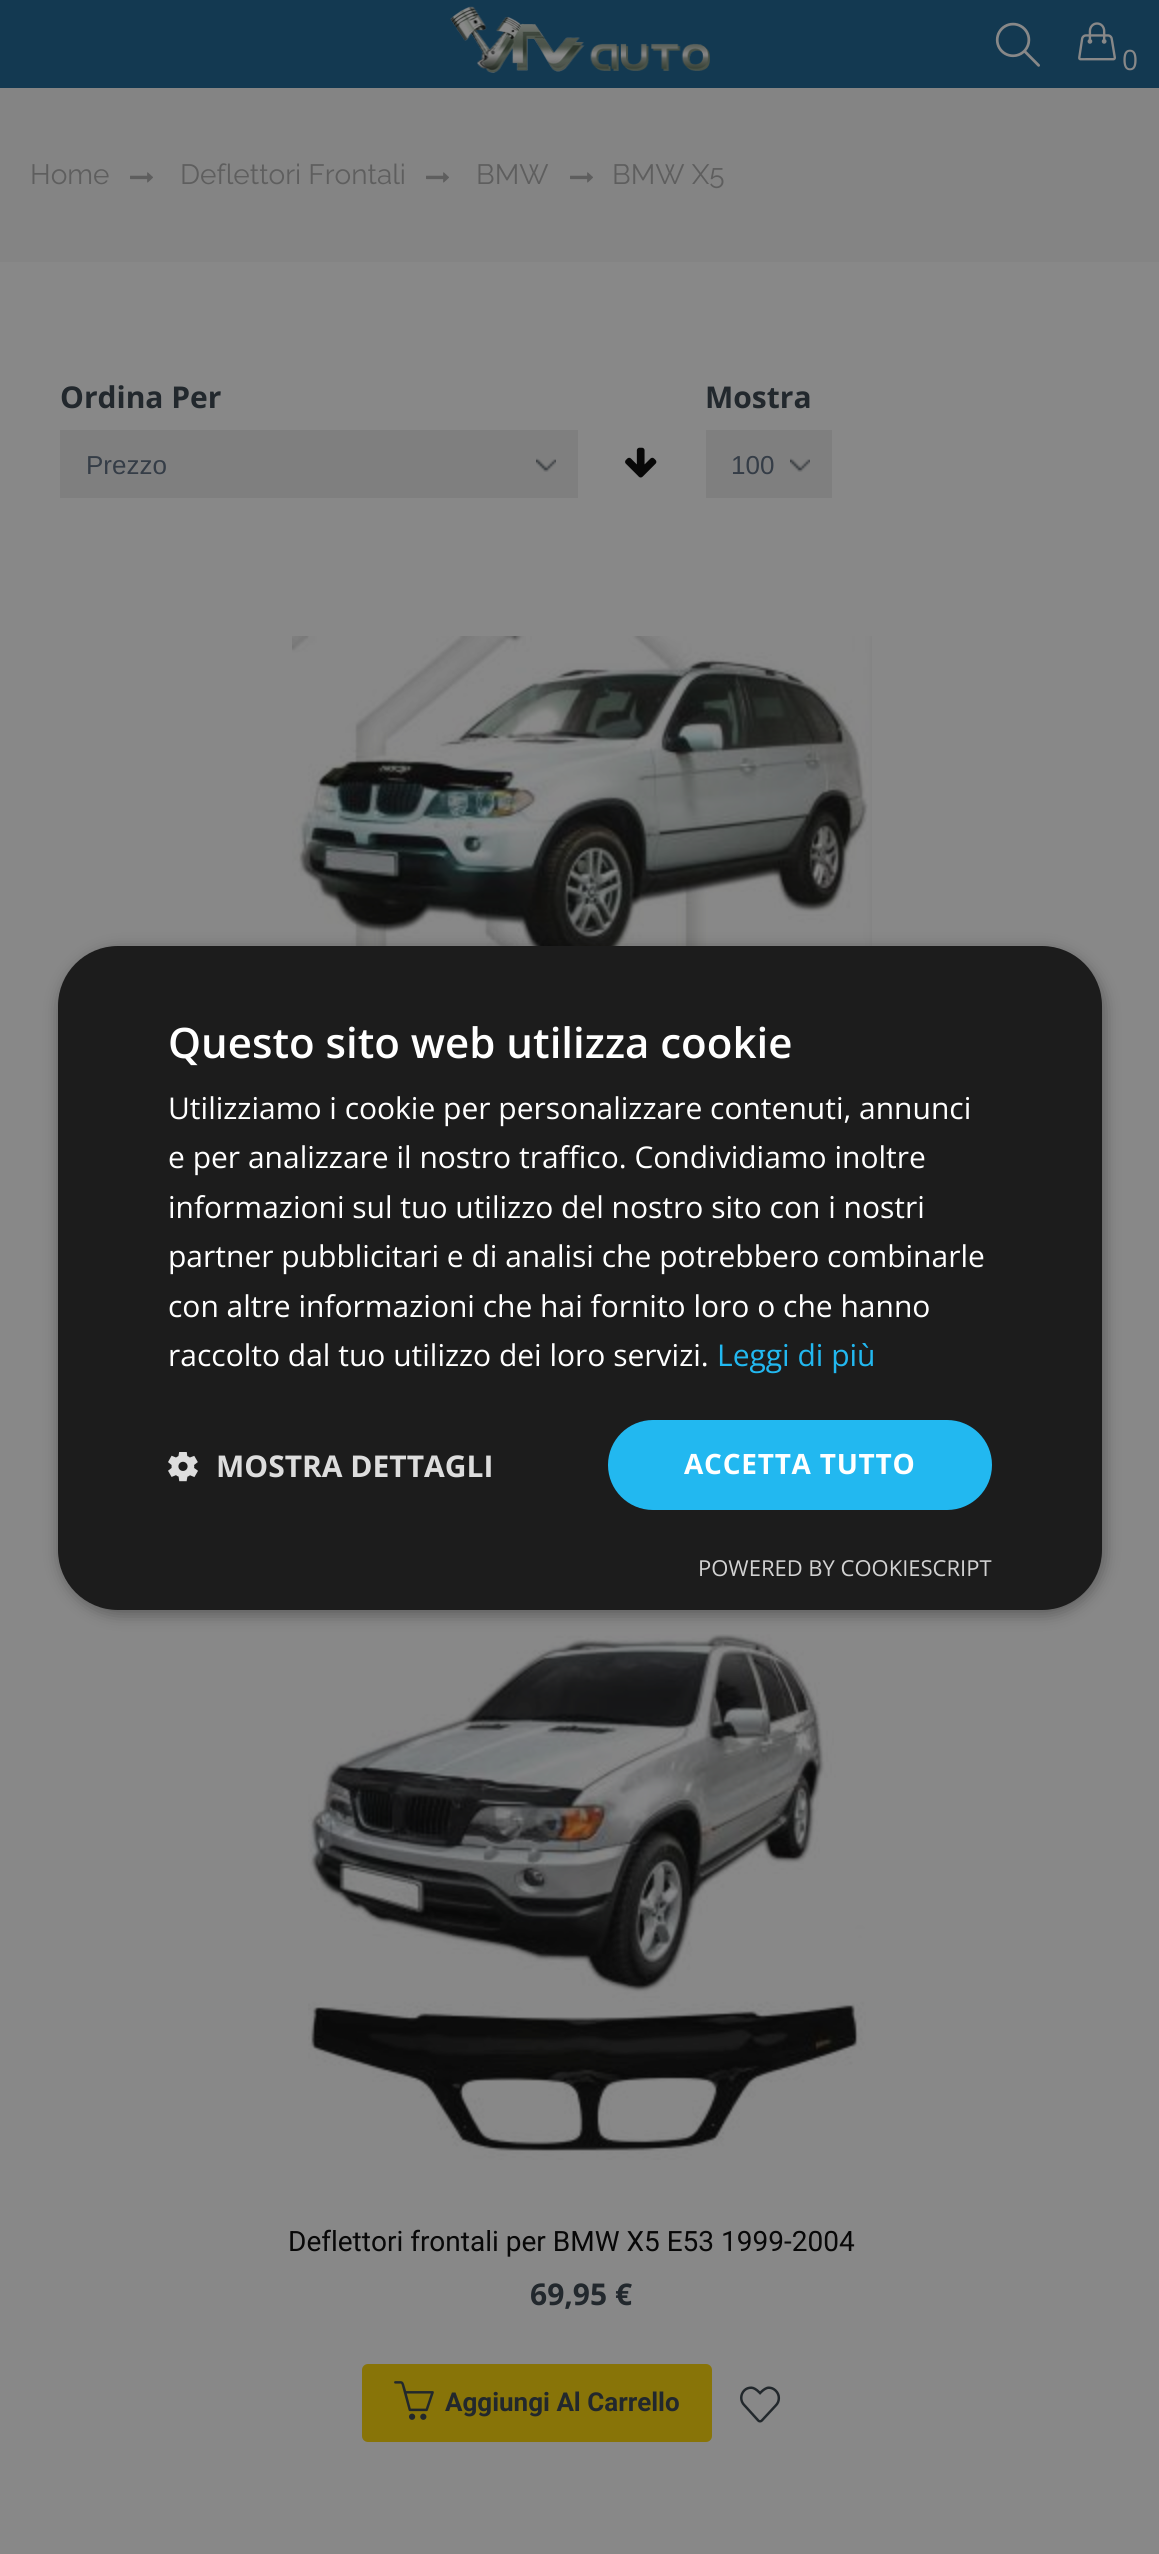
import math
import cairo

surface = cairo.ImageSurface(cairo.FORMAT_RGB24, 1159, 2554)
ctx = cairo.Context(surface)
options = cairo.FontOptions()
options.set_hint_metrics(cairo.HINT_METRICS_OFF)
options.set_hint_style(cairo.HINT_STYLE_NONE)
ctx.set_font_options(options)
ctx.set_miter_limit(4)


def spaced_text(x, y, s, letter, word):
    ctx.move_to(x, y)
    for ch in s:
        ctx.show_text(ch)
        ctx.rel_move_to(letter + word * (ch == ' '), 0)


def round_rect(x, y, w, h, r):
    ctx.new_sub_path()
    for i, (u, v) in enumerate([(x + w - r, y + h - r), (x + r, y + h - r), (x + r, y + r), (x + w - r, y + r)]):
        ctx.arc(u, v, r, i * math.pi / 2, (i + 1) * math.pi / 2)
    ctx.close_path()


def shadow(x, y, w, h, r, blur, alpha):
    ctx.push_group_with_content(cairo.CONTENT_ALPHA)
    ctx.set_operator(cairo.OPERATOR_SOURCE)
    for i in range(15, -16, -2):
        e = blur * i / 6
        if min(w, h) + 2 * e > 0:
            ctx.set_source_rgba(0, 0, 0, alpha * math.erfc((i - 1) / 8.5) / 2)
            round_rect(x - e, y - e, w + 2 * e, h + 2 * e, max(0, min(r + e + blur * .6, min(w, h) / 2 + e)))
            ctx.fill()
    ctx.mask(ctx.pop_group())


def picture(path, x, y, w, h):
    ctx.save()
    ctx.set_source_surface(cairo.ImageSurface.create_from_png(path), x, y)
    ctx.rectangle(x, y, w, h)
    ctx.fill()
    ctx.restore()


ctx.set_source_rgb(0.518, 0.518, 0.518)
ctx.paint()
ctx.set_source_rgb(0.075, 0.224, 0.318)
ctx.rectangle(0, 0, 1159, 88)
ctx.fill()
picture("img1.png", 450, 6, 260, 67)
picture("img2.png", 995, 22, 45, 45)
picture("img3.png", 1078, 22, 38, 39)
ctx.select_font_face("Open Sans")
ctx.set_font_size(28)
ctx.set_source_rgb(0.533, 0.533, 0.533)
ctx.move_to(1122, 70)
ctx.show_text("0")
ctx.select_font_face("Raleway Thin")
ctx.set_source_rgb(0.369, 0.369, 0.369)
ctx.move_to(30, 184)
ctx.show_text("Home")
picture("img4.png", 130, 172, 23, 11)
ctx.move_to(180, 184)
ctx.show_text("Deflettori Frontali")
picture("img4.png", 426, 172, 23, 11)
ctx.move_to(476, 184)
ctx.show_text("BMW")
picture("img4.png", 570, 172, 23, 11)
ctx.move_to(612, 184)
ctx.show_text("BMW X5")
ctx.set_source_rgb(0.533, 0.533, 0.533)
ctx.rectangle(0, 262, 1159, 2292)
ctx.fill()
ctx.select_font_face("Open Sans", cairo.FONT_SLANT_NORMAL, cairo.FONT_WEIGHT_BOLD)
ctx.set_font_size(30)
ctx.set_source_rgb(0.133, 0.157, 0.176)
ctx.move_to(60, 408)
ctx.show_text("Ordina Per")
ctx.set_source_rgb(0.498, 0.498, 0.498)
ctx.rectangle(60, 430, 518, 68)
ctx.fill()
picture("img5.png", 536, 458, 20, 14)
ctx.select_font_face("Liberation Sans")
ctx.set_font_size(26)
ctx.set_source_rgb(0.208, 0.239, 0.278)
ctx.move_to(86, 474)
ctx.show_text("Prezzo")
picture("img6.png", 625, 447, 32, 31)
ctx.select_font_face("Open Sans", cairo.FONT_SLANT_NORMAL, cairo.FONT_WEIGHT_BOLD)
ctx.set_font_size(30)
ctx.set_source_rgb(0.133, 0.157, 0.176)
ctx.move_to(705, 408)
ctx.show_text("Mostra")
ctx.set_source_rgb(0.498, 0.498, 0.498)
ctx.rectangle(706, 430, 126, 68)
ctx.fill()
picture("img5.png", 790, 458, 20, 14)
ctx.select_font_face("Liberation Sans")
ctx.set_font_size(26)
ctx.set_source_rgb(0.208, 0.239, 0.278)
ctx.move_to(731, 474)
ctx.show_text("100")
picture("img7.png", 292, 636, 580, 310)
picture("img8.png", 308, 1634, 558, 526)
ctx.select_font_face("Roboto")
ctx.set_font_size(28)
ctx.set_source_rgb(0.035, 0.035, 0.035)
ctx.move_to(288, 2251)
ctx.show_text("Deflettori frontali per BMW X5 E53 1999-2004")
ctx.select_font_face("Open Sans", cairo.FONT_SLANT_NORMAL, cairo.FONT_WEIGHT_BOLD)
ctx.set_font_size(30)
ctx.set_source_rgb(0.133, 0.157, 0.176)
ctx.move_to(530, 2305)
ctx.show_text("69,95 €")
ctx.set_source_rgb(0.533, 0.455, 0.035)
round_rect(363, 2365, 348, 76, 5)
ctx.fill_preserve()
ctx.stroke()
picture("img9.png", 394, 2381, 40, 39)
ctx.select_font_face("Roboto", cairo.FONT_SLANT_NORMAL, cairo.FONT_WEIGHT_BOLD)
ctx.set_font_size(26)
ctx.set_source_rgb(0.133, 0.157, 0.176)
ctx.move_to(445, 2411)
ctx.show_text("Aggiungi Al Carrello")
picture("img10.png", 740, 2386, 41, 37)
ctx.set_source_rgb(0, 0, 0)
shadow(60, 950, 1044, 664, 60, 8, 0.35)
ctx.set_source_rgb(0.11, 0.11, 0.11)
round_rect(58, 946, 1044, 664, 60)
ctx.fill()
ctx.select_font_face("Open Sans SemiBold")
ctx.set_font_size(42)
ctx.set_source_rgb(1, 1, 1)
ctx.move_to(168, 1058)
ctx.show_text("Questo sito web utilizza cookie")
ctx.select_font_face("Open Sans")
ctx.set_font_size(30)
ctx.move_to(168, 1119)
ctx.show_text("Utilizziamo i cookie per personalizzare contenuti, annunci")
ctx.move_to(168, 1168)
ctx.show_text("e per analizzare il nostro traffico. Condividiamo inoltre")
ctx.move_to(168, 1218)
ctx.show_text("informazioni sul tuo utilizzo del nostro sito con i nostri")
ctx.move_to(168, 1267)
ctx.show_text("partner pubblicitari e di analisi che potrebbero combinarle")
ctx.move_to(168, 1317)
ctx.show_text("con altre informazioni che hai fornito loro o che hanno")
ctx.move_to(168, 1366)
ctx.show_text("raccolto dal tuo utilizzo dei loro servizi.")
ctx.set_source_rgb(0.133, 0.722, 0.941)
ctx.move_to(717, 1366)
ctx.show_text("Leggi di più")
picture("img11.png", 168, 1452, 30, 30)
ctx.select_font_face("Open Sans", cairo.FONT_SLANT_NORMAL, cairo.FONT_WEIGHT_BOLD)
ctx.set_source_rgb(0.867, 0.867, 0.867)
ctx.move_to(216, 1477)
ctx.show_text("MOSTRA DETTAGLI")
ctx.set_source_rgb(0.133, 0.722, 0.941)
round_rect(608, 1420, 384, 90, 45)
ctx.fill()
ctx.set_font_size(28)
ctx.set_source_rgb(1, 1, 1)
spaced_text(684, 1474, "ACCETTA TUTTO", 0.75, 0)
ctx.select_font_face("Open Sans")
ctx.set_font_size(22)
ctx.set_source_rgb(0.824, 0.824, 0.824)
ctx.move_to(698, 1576)
ctx.show_text("POWERED BY COOKIESCRIPT")
surface.write_to_png("page.png")
